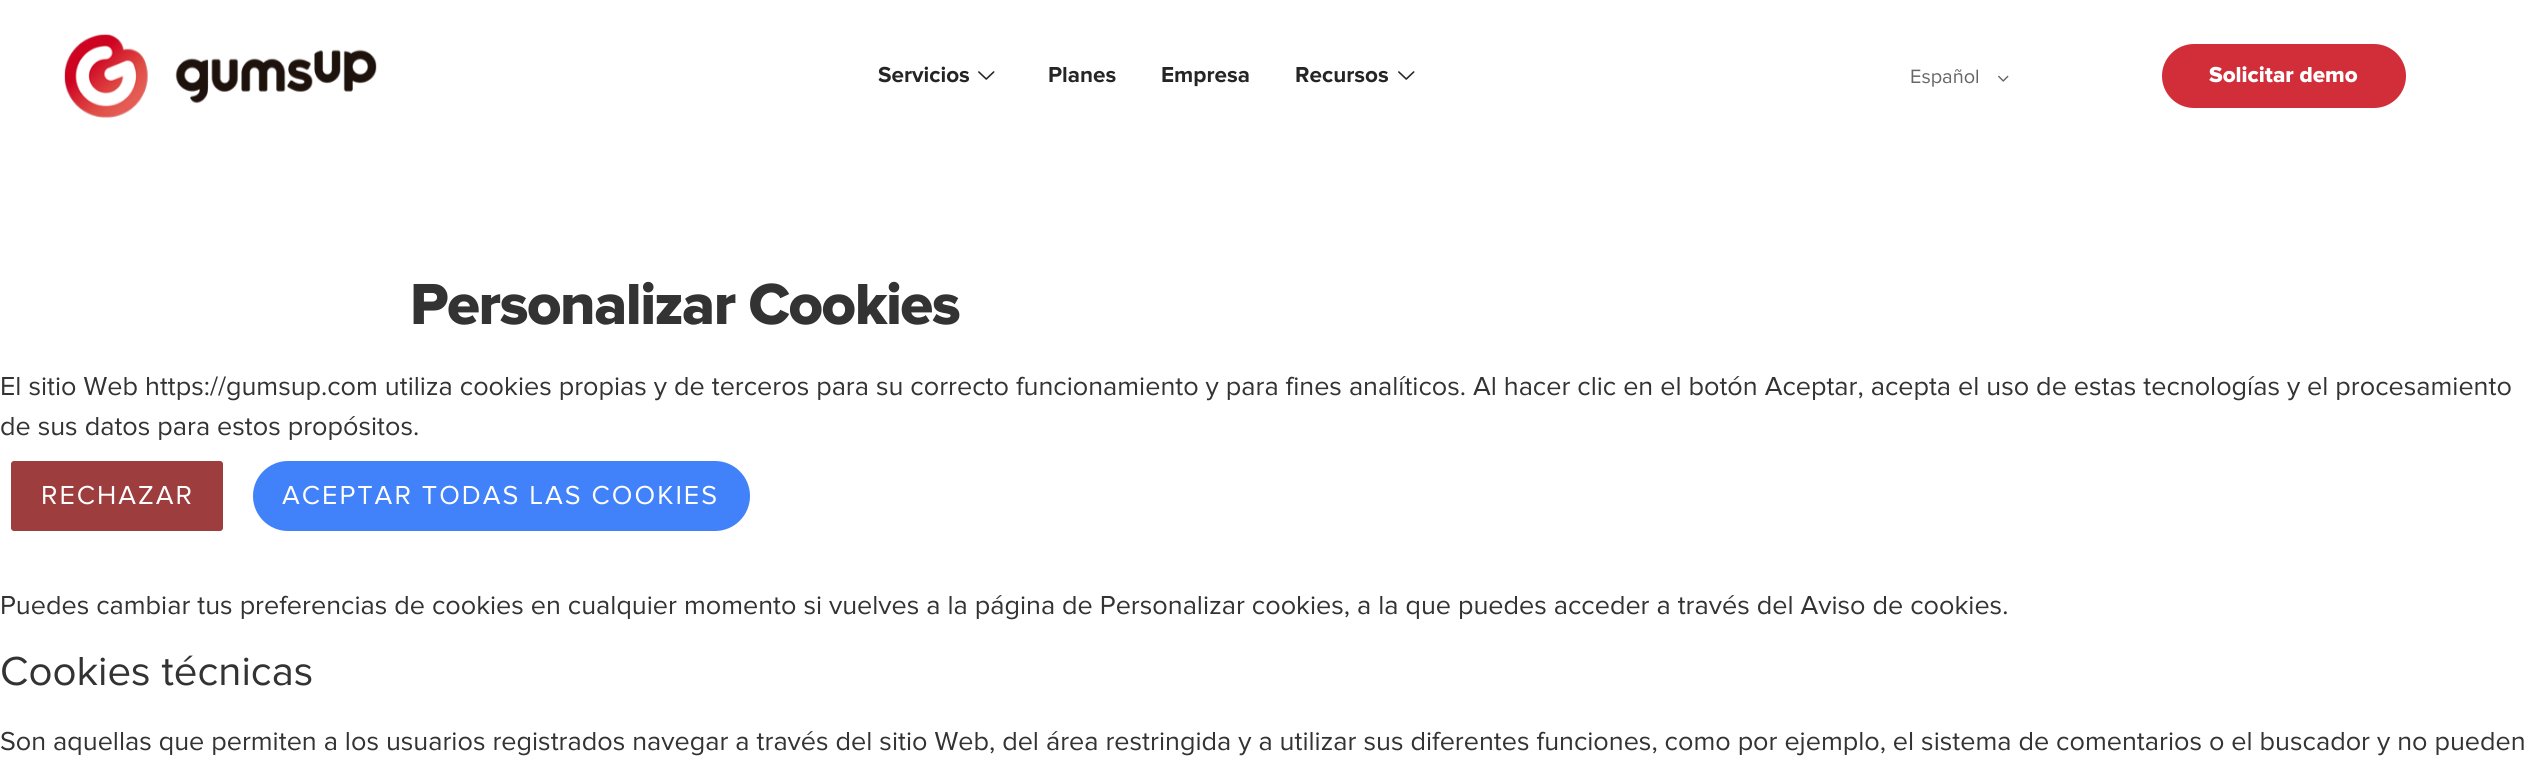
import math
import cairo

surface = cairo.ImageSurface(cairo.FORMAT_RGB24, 2528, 763)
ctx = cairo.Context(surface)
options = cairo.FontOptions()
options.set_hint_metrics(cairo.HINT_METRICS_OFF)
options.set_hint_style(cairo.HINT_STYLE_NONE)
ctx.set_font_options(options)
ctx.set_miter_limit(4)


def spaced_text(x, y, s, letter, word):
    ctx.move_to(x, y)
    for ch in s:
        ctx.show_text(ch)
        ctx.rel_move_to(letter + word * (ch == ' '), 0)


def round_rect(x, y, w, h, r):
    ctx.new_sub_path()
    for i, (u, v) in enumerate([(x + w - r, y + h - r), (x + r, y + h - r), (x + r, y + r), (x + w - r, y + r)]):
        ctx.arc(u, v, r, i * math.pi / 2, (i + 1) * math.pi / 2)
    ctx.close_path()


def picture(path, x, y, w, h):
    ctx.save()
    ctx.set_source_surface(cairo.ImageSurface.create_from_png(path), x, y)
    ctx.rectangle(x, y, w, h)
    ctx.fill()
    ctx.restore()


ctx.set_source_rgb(1, 1, 1)
ctx.paint()
picture("img1.png", 64, 34, 313, 84)
ctx.select_font_face("Proxima Nova", cairo.FONT_SLANT_NORMAL, cairo.FONT_WEIGHT_BOLD)
ctx.set_font_size(22.5)
ctx.set_source_rgb(0.145, 0.145, 0.145)
ctx.move_to(878, 82)
ctx.show_text("Servicios")
picture("img2.png", 978, 71, 17, 9)
ctx.move_to(1048, 82)
ctx.show_text("Planes")
ctx.move_to(1161, 82)
ctx.show_text("Empresa")
ctx.move_to(1295, 82)
ctx.show_text("Recursos")
picture("img2.png", 1398, 71, 17, 9)
ctx.select_font_face("Proxima Nova")
ctx.set_font_size(20)
ctx.set_source_rgb(0.4, 0.4, 0.4)
ctx.move_to(1910, 83)
ctx.show_text("Español")
picture("img3.png", 1998, 75, 11, 7)
ctx.set_source_rgb(0.82, 0.18, 0.224)
round_rect(2163.5, 45.5, 241, 61, 30.5)
ctx.fill_preserve()
ctx.set_line_width(3)
ctx.stroke()
ctx.select_font_face("Proxima Nova ExtraBold")
ctx.set_font_size(22.5)
ctx.set_source_rgb(1, 1, 1)
ctx.move_to(2209, 82)
ctx.show_text("Solicitar demo")
ctx.set_font_size(60)
ctx.set_source_rgb(0.2, 0.2, 0.2)
spaced_text(410, 324, "Personalizar Cookies", -1.5, 0)
ctx.select_font_face("Proxima Nova")
ctx.set_font_size(27)
ctx.move_to(0, 395)
ctx.show_text("El sitio Web https://gumsup.com utiliza cookies propias y de terceros para su correcto funcionamiento y para fines analíticos. Al hacer clic en el botón Aceptar, acepta el uso de estas tecnologías y el procesamiento")
ctx.move_to(0, 435)
ctx.show_text("de sus datos para estos propósitos.")
ctx.set_source_rgb(0.616, 0.239, 0.239)
round_rect(10, 460, 214, 72, 4)
ctx.fill_preserve()
ctx.set_source_rgb(1, 1, 1)
ctx.set_line_width(2)
ctx.stroke()
spaced_text(41, 504, "RECHAZAR", 2, 0)
ctx.set_source_rgb(0.255, 0.506, 0.98)
round_rect(252, 460, 499, 72, 36)
ctx.fill_preserve()
ctx.set_source_rgb(1, 1, 1)
ctx.stroke()
spaced_text(282, 504, "ACEPTAR TODAS LAS COOKIES", 2, 0)
ctx.set_source_rgb(0.2, 0.2, 0.2)
ctx.move_to(0, 614)
ctx.show_text("Puedes cambiar tus preferencias de cookies en cualquier momento si vuelves a la página de Personalizar cookies, a la que puedes acceder a través del Aviso de cookies.")
ctx.set_font_size(42)
ctx.move_to(0, 685)
ctx.show_text("Cookies técnicas")
ctx.set_font_size(27)
ctx.move_to(0, 750)
ctx.show_text("Son aquellas que permiten a los usuarios registrados navegar a través del sitio Web, del área restringida y a utilizar sus diferentes funciones, como por ejemplo, el sistema de comentarios o el buscador y no pueden")
surface.write_to_png("page.png")
